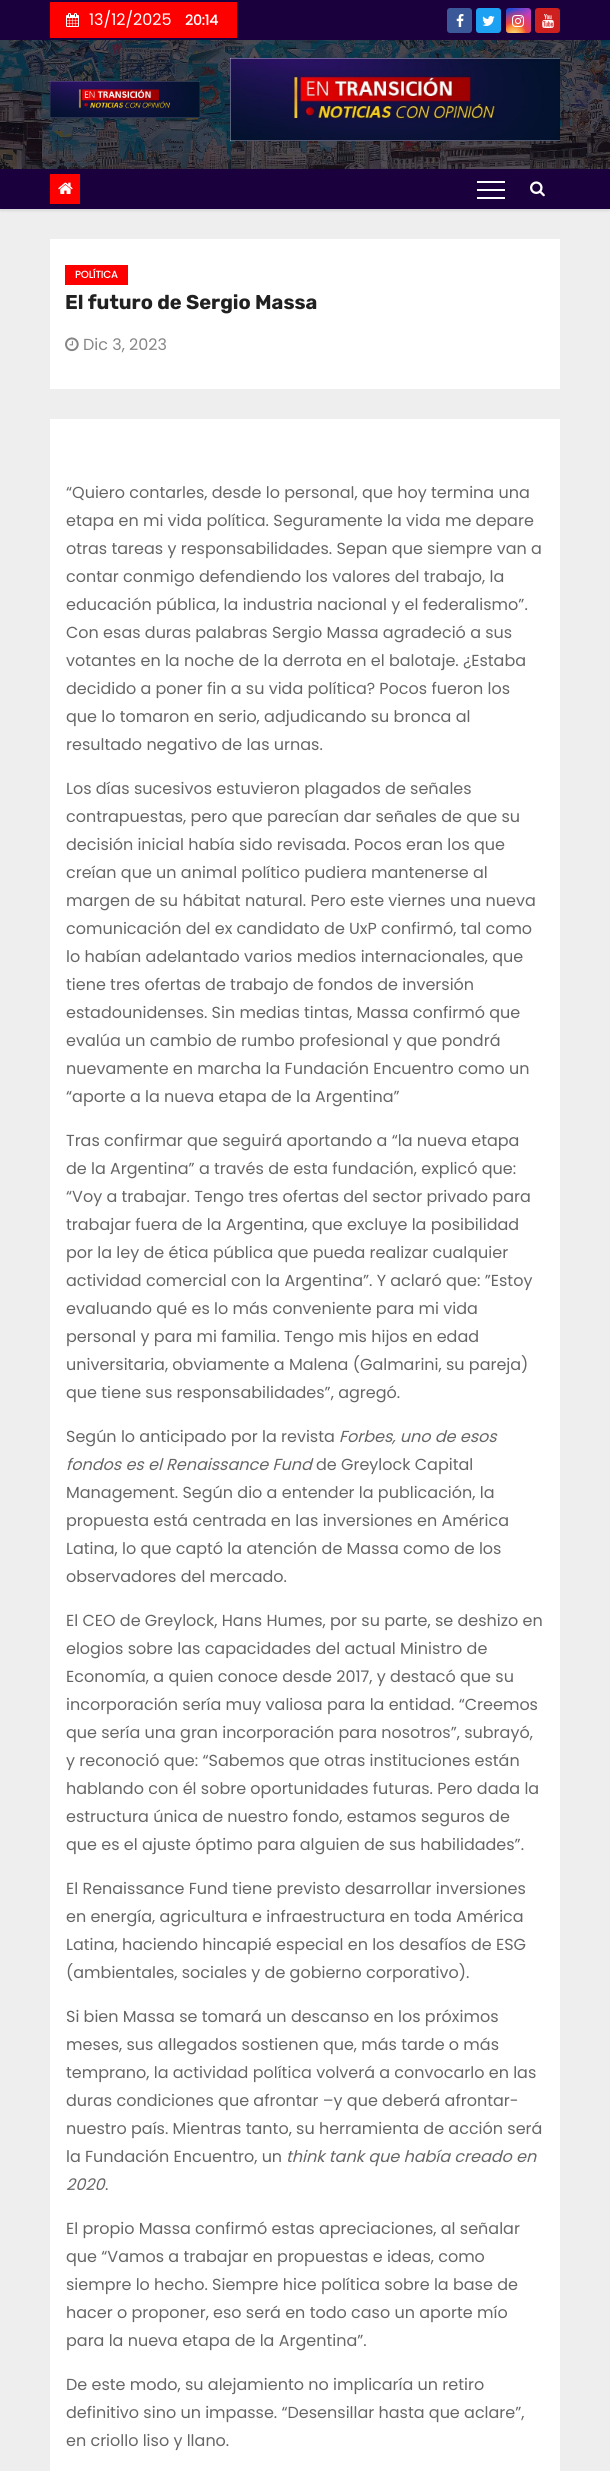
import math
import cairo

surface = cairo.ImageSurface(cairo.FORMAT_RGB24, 610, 2471)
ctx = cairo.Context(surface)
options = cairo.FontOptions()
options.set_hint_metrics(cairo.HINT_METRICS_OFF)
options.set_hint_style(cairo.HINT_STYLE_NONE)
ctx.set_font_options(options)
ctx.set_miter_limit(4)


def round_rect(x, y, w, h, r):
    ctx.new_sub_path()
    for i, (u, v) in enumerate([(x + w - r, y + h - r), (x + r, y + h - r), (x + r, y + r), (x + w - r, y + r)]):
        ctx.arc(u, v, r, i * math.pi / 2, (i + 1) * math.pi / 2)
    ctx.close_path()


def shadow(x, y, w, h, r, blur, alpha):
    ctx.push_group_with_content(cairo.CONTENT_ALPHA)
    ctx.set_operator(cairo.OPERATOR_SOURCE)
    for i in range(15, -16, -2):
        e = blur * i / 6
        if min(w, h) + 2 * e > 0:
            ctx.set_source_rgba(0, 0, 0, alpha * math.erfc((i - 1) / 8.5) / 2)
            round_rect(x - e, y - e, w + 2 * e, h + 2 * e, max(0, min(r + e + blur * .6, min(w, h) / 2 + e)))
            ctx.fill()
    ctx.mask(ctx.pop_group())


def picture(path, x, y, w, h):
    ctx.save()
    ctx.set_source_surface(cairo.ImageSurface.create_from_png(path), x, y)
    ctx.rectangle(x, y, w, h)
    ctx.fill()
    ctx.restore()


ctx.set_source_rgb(0.933, 0.933, 0.933)
ctx.paint()
ctx.set_source_rgb(0.102, 0, 0.239)
ctx.rectangle(0, 0, 610, 40)
ctx.fill()
ctx.set_source_rgb(1, 0, 0)
ctx.rectangle(50, 2, 187, 36)
ctx.fill()
picture("img1.png", 66, 13, 13, 14)
ctx.select_font_face("Poppins")
ctx.set_font_size(16)
ctx.set_source_rgb(1, 1, 1)
ctx.move_to(89, 25)
ctx.show_text("13/12/2025")
ctx.select_font_face("Poppins", cairo.FONT_SLANT_NORMAL, cairo.FONT_WEIGHT_BOLD)
ctx.set_font_size(14)
ctx.move_to(185, 25)
ctx.show_text("20:14")
ctx.set_source_rgb(0.231, 0.349, 0.596)
round_rect(447, 8, 25, 25, 3)
ctx.fill()
picture("img2.png", 456, 14, 8, 13)
ctx.set_source_rgb(0.114, 0.631, 0.949)
round_rect(476, 8, 25, 25, 3)
ctx.fill()
picture("img3.png", 482, 16, 13, 10)
gradient = cairo.LinearGradient(506, 8, 531, 33)
gradient.add_color_stop_rgba(0.12, 0.137, 0.294, 0.843, 1)
gradient.add_color_stop_rgba(0.58, 0.765, 0.235, 0.745, 1)
ctx.set_source(gradient)
round_rect(506, 8, 25, 25, 3)
ctx.fill()
gradient = cairo.RadialGradient(514, 35, 0, 514, 35, 31)
gradient.add_color_stop_rgba(0, 1, 0.882, 0.49, 1)
gradient.add_color_stop_rgba(0.1, 1, 0.804, 0.412, 1)
gradient.add_color_stop_rgba(0.28, 0.98, 0.569, 0.216, 1)
gradient.add_color_stop_rgba(0.42, 0.922, 0.255, 0.255, 1)
gradient.add_color_stop_rgba(0.82, 0.922, 0.255, 0.255, 0)
ctx.set_source(gradient)
round_rect(506, 8, 25, 25, 3)
ctx.fill()
picture("img4.png", 512, 15, 12, 12)
ctx.set_source_rgb(0.804, 0.125, 0.122)
round_rect(535, 8, 25, 25, 3)
ctx.fill()
picture("img5.png", 542, 14, 12, 14)
picture("img6.png", 0, 40, 610, 129)
picture("img7.png", 50, 81, 150, 37)
picture("img8.png", 230, 58, 330, 83)
ctx.set_source_rgb(0, 0, 0)
shadow(0, 171, 610, 40, 0, 1, 0.08)
ctx.set_source_rgb(0.102, 0, 0.239)
ctx.rectangle(0, 169, 610, 40)
ctx.fill()
ctx.set_source_rgb(1, 0, 0)
ctx.rectangle(50, 174, 30, 30)
ctx.fill()
picture("img9.png", 58, 182, 15, 12)
ctx.set_source_rgb(1, 1, 1)
ctx.rectangle(477, 181, 28, 2)
ctx.fill()
ctx.rectangle(477, 189, 28, 2)
ctx.fill()
ctx.rectangle(477, 197, 28, 2)
ctx.fill()
picture("img10.png", 530, 181, 15, 16)
ctx.rectangle(50, 239, 510, 150)
ctx.fill()
ctx.set_source_rgb(1, 0, 0)
ctx.rectangle(65, 265, 63, 20)
ctx.fill()
ctx.set_font_size(10)
ctx.set_source_rgb(1, 1, 1)
ctx.move_to(75, 278)
ctx.show_text("POLÍTICA")
ctx.select_font_face("Rubik", cairo.FONT_SLANT_NORMAL, cairo.FONT_WEIGHT_BOLD)
ctx.set_font_size(20)
ctx.set_source_rgb(0.129, 0.129, 0.129)
ctx.move_to(65, 309)
ctx.show_text("El futuro de Sergio Massa")
picture("img11.png", 65, 337, 14, 15)
ctx.select_font_face("Poppins")
ctx.set_font_size(16)
ctx.set_source_rgb(0.525, 0.525, 0.525)
ctx.move_to(83, 350)
ctx.show_text("Dic 3, 2023")
ctx.set_source_rgb(1, 1, 1)
ctx.rectangle(50, 419, 510, 2052)
ctx.fill()
ctx.set_source_rgb(0.4, 0.4, 0.4)
ctx.move_to(66, 498)
ctx.show_text("“Quiero contarles, desde lo personal, que hoy termina una")
ctx.move_to(66, 526)
ctx.show_text("etapa en mi vida política. Seguramente la vida me depare")
ctx.move_to(66, 554)
ctx.show_text("otras tareas y responsabilidades. Sepan que siempre van a")
ctx.move_to(66, 582)
ctx.show_text("contar conmigo defendiendo los valores del trabajo, la")
ctx.move_to(66, 610)
ctx.show_text("educación pública, la industria nacional y el federalismo”.")
ctx.move_to(66, 638)
ctx.show_text("Con esas duras palabras Sergio Massa agradeció a sus")
ctx.move_to(66, 666)
ctx.show_text("votantes en la noche de la derrota en el balotaje. ¿Estaba")
ctx.move_to(66, 694)
ctx.show_text("decidido a poner fin a su vida política? Pocos fueron los")
ctx.move_to(66, 722)
ctx.show_text("que lo tomaron en serio, adjudicando su bronca al")
ctx.move_to(66, 750)
ctx.show_text("resultado negativo de las urnas.")
ctx.move_to(66, 794)
ctx.show_text("Los días sucesivos estuvieron plagados de señales")
ctx.move_to(66, 822)
ctx.show_text("contrapuestas, pero que parecían dar señales de que su")
ctx.move_to(66, 850)
ctx.show_text("decisión inicial había sido revisada. Pocos eran los que")
ctx.move_to(66, 878)
ctx.show_text("creían que un animal político pudiera mantenerse al")
ctx.move_to(66, 906)
ctx.show_text("margen de su hábitat natural. Pero este viernes una nueva")
ctx.move_to(66, 934)
ctx.show_text("comunicación del ex candidato de UxP confirmó, tal como")
ctx.move_to(66, 962)
ctx.show_text("lo habían adelantado varios medios internacionales, que")
ctx.move_to(66, 990)
ctx.show_text("tiene tres ofertas de trabajo de fondos de inversión")
ctx.move_to(66, 1018)
ctx.show_text("estadounidenses. Sin medias tintas, Massa confirmó que")
ctx.move_to(66, 1046)
ctx.show_text("evalúa un cambio de rumbo profesional y que pondrá")
ctx.move_to(66, 1074)
ctx.show_text("nuevamente en marcha la Fundación Encuentro como un")
ctx.move_to(66, 1102)
ctx.show_text("“aporte a la nueva etapa de la Argentina”")
ctx.move_to(66, 1146)
ctx.show_text("Tras confirmar que seguirá aportando a “la nueva etapa")
ctx.move_to(66, 1174)
ctx.show_text("de la Argentina” a través de esta fundación, explicó que:")
ctx.move_to(66, 1202)
ctx.show_text("“Voy a trabajar. Tengo tres ofertas del sector privado para")
ctx.move_to(66, 1230)
ctx.show_text("trabajar fuera de la Argentina, que excluye la posibilidad")
ctx.move_to(66, 1258)
ctx.show_text("por la ley de ética pública que pueda realizar cualquier")
ctx.move_to(66, 1286)
ctx.show_text("actividad comercial con la Argentina”. Y aclaró que: ”Estoy")
ctx.move_to(66, 1314)
ctx.show_text("evaluando qué es lo más conveniente para mi vida")
ctx.move_to(66, 1342)
ctx.show_text("personal y para mi familia. Tengo mis hijos en edad")
ctx.move_to(66, 1370)
ctx.show_text("universitaria, obviamente a Malena (Galmarini, su pareja)")
ctx.move_to(66, 1398)
ctx.show_text("que tiene sus responsabilidades”, agregó.")
ctx.move_to(66, 1442)
ctx.show_text("Según lo anticipado por la revista")
ctx.select_font_face("Poppins", cairo.FONT_SLANT_ITALIC)
ctx.move_to(339, 1442)
ctx.show_text("Forbes, uno de esos")
ctx.move_to(66, 1470)
ctx.show_text("fondos es el Renaissance Fund")
ctx.select_font_face("Poppins")
ctx.move_to(316, 1470)
ctx.show_text("de Greylock Capital")
ctx.move_to(66, 1498)
ctx.show_text("Management. Según dio a entender la publicación, la")
ctx.move_to(66, 1526)
ctx.show_text("propuesta está centrada en las inversiones en América")
ctx.move_to(66, 1554)
ctx.show_text("Latina, lo que captó la atención de Massa como de los")
ctx.move_to(66, 1582)
ctx.show_text("observadores del mercado.")
ctx.move_to(66, 1626)
ctx.show_text("El CEO de Greylock, Hans Humes, por su parte, se deshizo en")
ctx.move_to(66, 1654)
ctx.show_text("elogios sobre las capacidades del actual Ministro de")
ctx.move_to(66, 1682)
ctx.show_text("Economía, a quien conoce desde 2017, y destacó que su")
ctx.move_to(66, 1710)
ctx.show_text("incorporación sería muy valiosa para la entidad. “Creemos")
ctx.move_to(66, 1738)
ctx.show_text("que sería una gran incorporación para nosotros”, subrayó,")
ctx.move_to(66, 1766)
ctx.show_text("y reconoció que: “Sabemos que otras instituciones están")
ctx.move_to(66, 1794)
ctx.show_text("hablando con él sobre oportunidades futuras. Pero dada la")
ctx.move_to(66, 1822)
ctx.show_text("estructura única de nuestro fondo, estamos seguros de")
ctx.move_to(66, 1850)
ctx.show_text("que es el ajuste óptimo para alguien de sus habilidades”.")
ctx.move_to(66, 1894)
ctx.show_text("El Renaissance Fund tiene previsto desarrollar inversiones")
ctx.move_to(66, 1922)
ctx.show_text("en energía, agricultura e infraestructura en toda América")
ctx.move_to(66, 1950)
ctx.show_text("Latina, haciendo hincapié especial en los desafíos de ESG")
ctx.move_to(66, 1978)
ctx.show_text("(ambientales, sociales y de gobierno corporativo).")
ctx.move_to(66, 2022)
ctx.show_text("Si bien Massa se tomará un descanso en los próximos")
ctx.move_to(66, 2050)
ctx.show_text("meses, sus allegados sostienen que, más tarde o más")
ctx.move_to(66, 2078)
ctx.show_text("temprano, la actividad política volverá a convocarlo en las")
ctx.move_to(66, 2106)
ctx.show_text("duras condiciones que afrontar –y que deberá afrontar-")
ctx.move_to(66, 2134)
ctx.show_text("nuestro país. Mientras tanto, su herramienta de acción será")
ctx.move_to(66, 2162)
ctx.show_text("la Fundación Encuentro, un")
ctx.select_font_face("Poppins", cairo.FONT_SLANT_ITALIC)
ctx.move_to(286, 2162)
ctx.show_text("think tank que había creado en")
ctx.move_to(66, 2190)
ctx.show_text("2020")
ctx.select_font_face("Poppins")
ctx.move_to(105, 2190)
ctx.show_text(".")
ctx.move_to(66, 2234)
ctx.show_text("El propio Massa confirmó estas apreciaciones, al señalar")
ctx.move_to(66, 2262)
ctx.show_text("que “Vamos a trabajar en propuestas e ideas, como")
ctx.move_to(66, 2290)
ctx.show_text("siempre lo hecho. Siempre hice política sobre la base de")
ctx.move_to(66, 2318)
ctx.show_text("hacer o proponer, eso será en todo caso un aporte mío")
ctx.move_to(66, 2346)
ctx.show_text("para la nueva etapa de la Argentina”.")
ctx.move_to(66, 2390)
ctx.show_text("De este modo, su alejamiento no implicaría un retiro")
ctx.move_to(66, 2418)
ctx.show_text("definitivo sino un impasse. “Desensillar hasta que aclare”,")
ctx.move_to(66, 2446)
ctx.show_text("en criollo liso y llano.")
surface.write_to_png("page.png")
